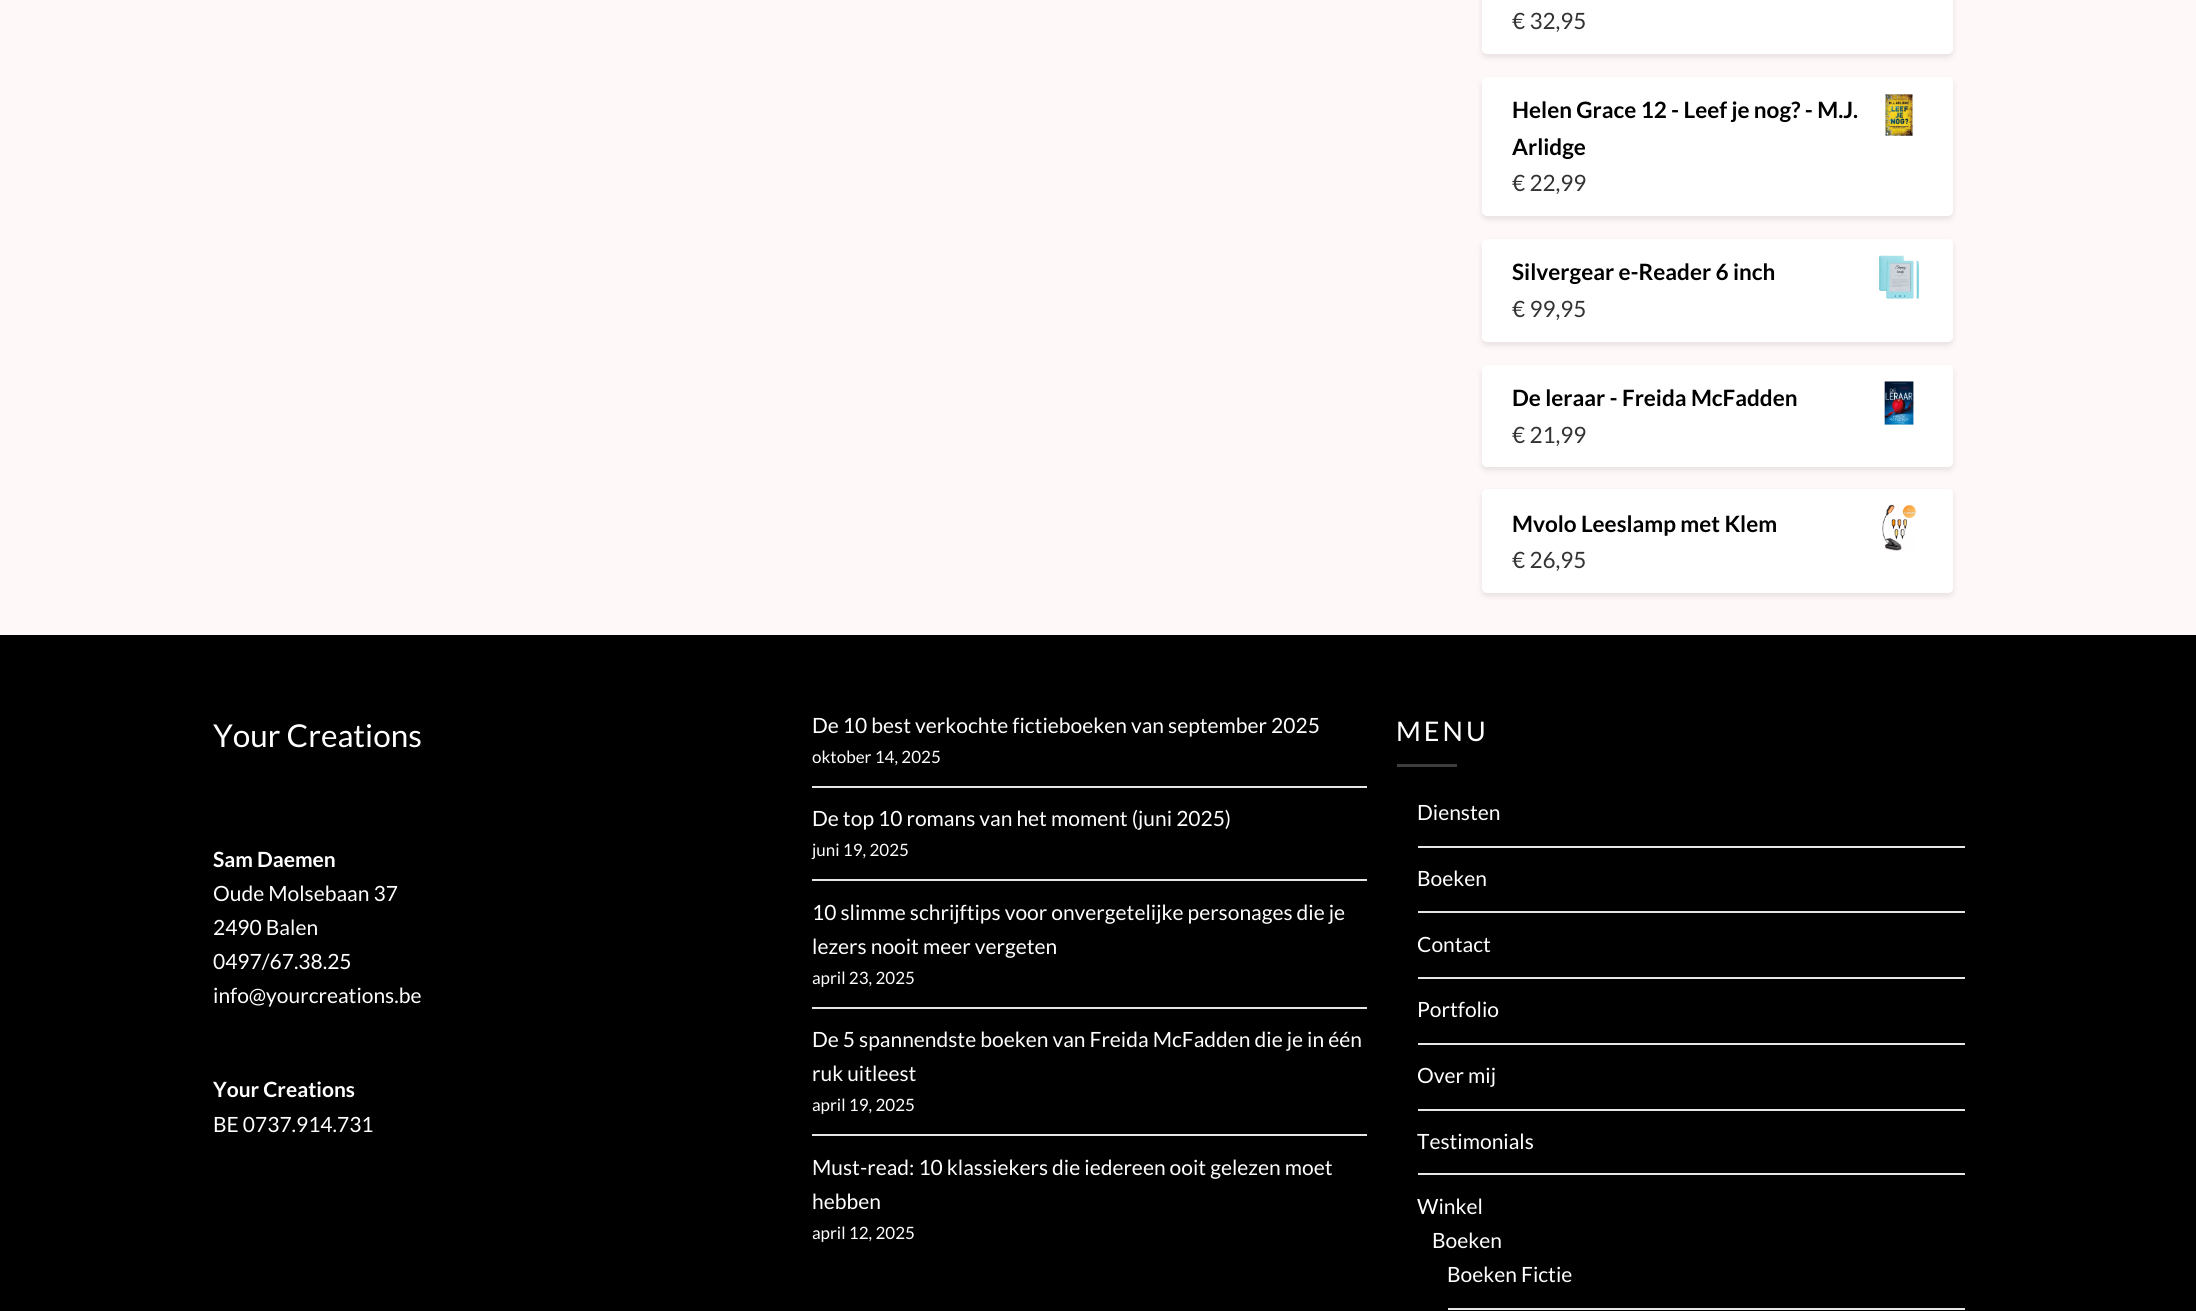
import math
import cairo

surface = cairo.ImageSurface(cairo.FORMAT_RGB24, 2196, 1311)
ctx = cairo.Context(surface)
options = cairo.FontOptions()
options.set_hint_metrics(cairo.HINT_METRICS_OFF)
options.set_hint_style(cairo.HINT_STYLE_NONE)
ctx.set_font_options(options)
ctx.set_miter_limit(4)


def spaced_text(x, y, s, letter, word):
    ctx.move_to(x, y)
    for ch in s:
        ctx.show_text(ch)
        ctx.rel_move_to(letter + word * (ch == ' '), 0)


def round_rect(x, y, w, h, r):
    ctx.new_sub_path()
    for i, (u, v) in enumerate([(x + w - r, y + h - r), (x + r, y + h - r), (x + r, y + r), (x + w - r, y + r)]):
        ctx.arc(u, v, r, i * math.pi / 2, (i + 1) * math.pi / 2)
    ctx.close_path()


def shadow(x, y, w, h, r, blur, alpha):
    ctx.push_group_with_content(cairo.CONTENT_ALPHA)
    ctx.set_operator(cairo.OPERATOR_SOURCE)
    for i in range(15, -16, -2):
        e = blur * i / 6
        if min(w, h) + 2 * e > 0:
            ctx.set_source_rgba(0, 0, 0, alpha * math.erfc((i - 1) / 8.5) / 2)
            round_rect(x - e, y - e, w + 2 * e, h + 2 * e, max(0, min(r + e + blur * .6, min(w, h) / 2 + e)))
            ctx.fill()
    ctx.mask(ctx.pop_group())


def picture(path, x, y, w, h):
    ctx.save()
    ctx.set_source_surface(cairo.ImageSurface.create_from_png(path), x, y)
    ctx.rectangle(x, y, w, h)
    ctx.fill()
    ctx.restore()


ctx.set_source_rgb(1, 0.969, 0.969)
ctx.paint()
ctx.set_source_rgb(0, 0, 0)
shadow(1482, -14, 471, 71, 5, 3, 0.1)
ctx.set_source_rgb(1, 1, 1)
round_rect(1482, -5, 471, 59, 5)
ctx.fill()
ctx.select_font_face("Lato")
ctx.set_font_size(22.5)
ctx.set_source_rgb(0.2, 0.2, 0.2)
ctx.move_to(1512, 29)
ctx.show_text("€ 32,95")
ctx.set_source_rgb(0, 0, 0)
shadow(1482, 80, 471, 139, 5, 3, 0.1)
ctx.set_source_rgb(1, 1, 1)
round_rect(1482, 77, 471, 139, 5)
ctx.fill()
ctx.select_font_face("Lato", cairo.FONT_SLANT_NORMAL, cairo.FONT_WEIGHT_BOLD)
ctx.set_source_rgb(0, 0, 0)
ctx.move_to(1512, 118)
ctx.show_text("Helen Grace 12 - Leef je nog? - M.J.")
picture("img1.png", 1885, 94, 29, 42)
ctx.move_to(1512, 155)
ctx.show_text("Arlidge")
ctx.select_font_face("Lato")
ctx.set_source_rgb(0.2, 0.2, 0.2)
ctx.move_to(1512, 191)
ctx.show_text("€ 22,99")
ctx.set_source_rgb(0, 0, 0)
shadow(1482, 242, 471, 103, 5, 3, 0.1)
ctx.set_source_rgb(1, 1, 1)
round_rect(1482, 239, 471, 103, 5)
ctx.fill()
ctx.select_font_face("Lato", cairo.FONT_SLANT_NORMAL, cairo.FONT_WEIGHT_BOLD)
ctx.set_source_rgb(0, 0, 0)
ctx.move_to(1512, 280)
ctx.show_text("Silvergear e-Reader 6 inch")
picture("img2.png", 1879, 255, 41, 44)
ctx.select_font_face("Lato")
ctx.set_source_rgb(0.2, 0.2, 0.2)
ctx.move_to(1512, 317)
ctx.show_text("€ 99,95")
ctx.set_source_rgb(0, 0, 0)
shadow(1482, 368, 471, 102, 5, 3, 0.1)
ctx.set_source_rgb(1, 1, 1)
round_rect(1482, 365, 471, 102, 5)
ctx.fill()
ctx.select_font_face("Lato", cairo.FONT_SLANT_NORMAL, cairo.FONT_WEIGHT_BOLD)
ctx.set_source_rgb(0, 0, 0)
ctx.move_to(1512, 406)
ctx.show_text("De leraar - Freida McFadden")
picture("img3.png", 1884, 381, 30, 44)
ctx.select_font_face("Lato")
ctx.set_source_rgb(0.2, 0.2, 0.2)
ctx.move_to(1512, 443)
ctx.show_text("€ 21,99")
ctx.set_source_rgb(0, 0, 0)
shadow(1482, 492, 471, 104, 5, 3, 0.1)
ctx.set_source_rgb(1, 1, 1)
round_rect(1482, 489, 471, 104, 5)
ctx.fill()
ctx.select_font_face("Lato", cairo.FONT_SLANT_NORMAL, cairo.FONT_WEIGHT_BOLD)
ctx.set_source_rgb(0, 0, 0)
ctx.move_to(1512, 532)
ctx.show_text("Mvolo Leeslamp met Klem")
picture("img4.png", 1882, 504, 34, 47)
ctx.select_font_face("Lato")
ctx.set_source_rgb(0.2, 0.2, 0.2)
ctx.move_to(1512, 568)
ctx.show_text("€ 26,95")
ctx.set_source_rgb(0, 0, 0)
ctx.rectangle(0, 635, 2196, 676)
ctx.fill()
ctx.set_font_size(31.5)
ctx.set_source_rgb(1, 1, 1)
ctx.move_to(213, 747)
ctx.show_text("Your Creations")
ctx.select_font_face("Lato", cairo.FONT_SLANT_NORMAL, cairo.FONT_WEIGHT_BOLD)
ctx.set_font_size(21)
ctx.move_to(213, 867)
ctx.show_text("Sam Daemen")
ctx.select_font_face("Lato")
ctx.move_to(213, 901)
ctx.show_text("Oude Molsebaan 37")
ctx.move_to(213, 935)
ctx.show_text("2490 Balen")
ctx.move_to(213, 969)
ctx.show_text("0497/67.38.25")
ctx.move_to(213, 1003)
ctx.show_text("info@yourcreations.be")
ctx.select_font_face("Lato", cairo.FONT_SLANT_NORMAL, cairo.FONT_WEIGHT_BOLD)
ctx.move_to(213, 1097)
ctx.show_text("Your Creations")
ctx.select_font_face("Lato")
ctx.move_to(213, 1132)
ctx.show_text("BE 0737.914.731")
ctx.set_source_rgb(0.902, 0.902, 0.902)
ctx.rectangle(812, 786, 555, 2)
ctx.fill()
ctx.set_source_rgb(1, 1, 1)
ctx.move_to(812, 733)
ctx.show_text("De 10 best verkochte fictieboeken van september 2025")
ctx.set_font_size(17)
ctx.move_to(812, 763)
ctx.show_text("oktober 14, 2025")
ctx.set_source_rgb(0.902, 0.902, 0.902)
ctx.rectangle(812, 879, 555, 2)
ctx.fill()
ctx.set_font_size(21)
ctx.set_source_rgb(1, 1, 1)
ctx.move_to(812, 826)
ctx.show_text("De top 10 romans van het moment (juni 2025)")
ctx.set_font_size(17)
ctx.move_to(812, 856)
ctx.show_text("juni 19, 2025")
ctx.set_source_rgb(0.902, 0.902, 0.902)
ctx.rectangle(812, 1007, 555, 2)
ctx.fill()
ctx.set_font_size(21)
ctx.set_source_rgb(1, 1, 1)
ctx.move_to(812, 920)
ctx.show_text("10 slimme schrijftips voor onvergetelijke personages die je")
ctx.move_to(812, 954)
ctx.show_text("lezers nooit meer vergeten")
ctx.set_font_size(17)
ctx.move_to(812, 984)
ctx.show_text("april 23, 2025")
ctx.set_source_rgb(0.902, 0.902, 0.902)
ctx.rectangle(812, 1134, 555, 2)
ctx.fill()
ctx.set_font_size(21)
ctx.set_source_rgb(1, 1, 1)
ctx.move_to(812, 1047)
ctx.show_text("De 5 spannendste boeken van Freida McFadden die je in één")
ctx.move_to(812, 1081)
ctx.show_text("ruk uitleest")
ctx.set_font_size(17)
ctx.move_to(812, 1111)
ctx.show_text("april 19, 2025")
ctx.set_font_size(21)
ctx.move_to(812, 1175)
ctx.show_text("Must-read: 10 klassiekers die iedereen ooit gelezen moet")
ctx.move_to(812, 1209)
ctx.show_text("hebben")
ctx.set_font_size(17)
ctx.move_to(812, 1239)
ctx.show_text("april 12, 2025")
ctx.set_font_size(27)
spaced_text(1396, 741, "MENU", 3, 0)
ctx.set_source_rgb(0.239, 0.239, 0.239)
ctx.rectangle(1397, 764, 60, 3)
ctx.fill()
ctx.set_source_rgb(0.902, 0.902, 0.902)
ctx.rectangle(1418, 846, 547, 2)
ctx.fill()
ctx.set_font_size(21)
ctx.set_source_rgb(1, 1, 1)
ctx.move_to(1417, 820)
ctx.show_text("Diensten")
ctx.set_source_rgb(0.902, 0.902, 0.902)
ctx.rectangle(1418, 911, 547, 2)
ctx.fill()
ctx.set_source_rgb(1, 1, 1)
ctx.move_to(1417, 886)
ctx.show_text("Boeken")
ctx.set_source_rgb(0.902, 0.902, 0.902)
ctx.rectangle(1418, 977, 547, 2)
ctx.fill()
ctx.set_source_rgb(1, 1, 1)
ctx.move_to(1417, 952)
ctx.show_text("Contact")
ctx.set_source_rgb(0.902, 0.902, 0.902)
ctx.rectangle(1418, 1043, 547, 2)
ctx.fill()
ctx.set_source_rgb(1, 1, 1)
ctx.move_to(1417, 1017)
ctx.show_text("Portfolio")
ctx.set_source_rgb(0.902, 0.902, 0.902)
ctx.rectangle(1418, 1109, 547, 2)
ctx.fill()
ctx.set_source_rgb(1, 1, 1)
ctx.move_to(1417, 1083)
ctx.show_text("Over mij")
ctx.set_source_rgb(0.902, 0.902, 0.902)
ctx.rectangle(1418, 1173, 547, 2)
ctx.fill()
ctx.set_source_rgb(1, 1, 1)
ctx.move_to(1417, 1149)
ctx.show_text("Testimonials")
ctx.move_to(1417, 1214)
ctx.show_text("Winkel")
ctx.move_to(1432, 1248)
ctx.show_text("Boeken")
ctx.set_source_rgb(0.902, 0.902, 0.902)
ctx.rectangle(1448, 1308, 517, 2)
ctx.fill()
ctx.set_source_rgb(1, 1, 1)
ctx.move_to(1447, 1282)
ctx.show_text("Boeken Fictie")
surface.write_to_png("page.png")
